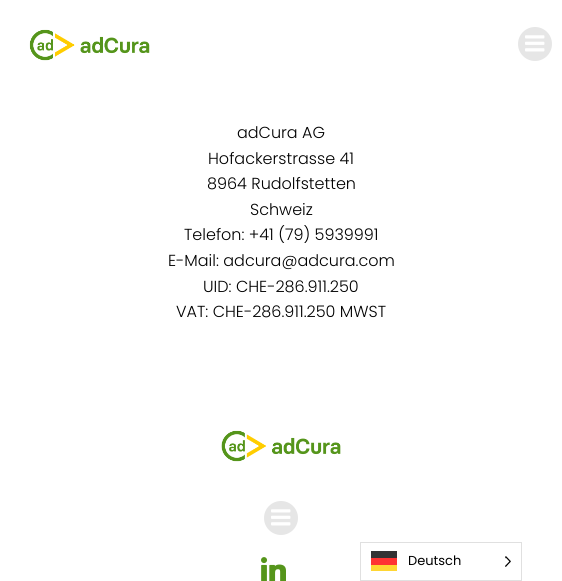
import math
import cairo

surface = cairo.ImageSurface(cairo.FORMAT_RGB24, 562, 581)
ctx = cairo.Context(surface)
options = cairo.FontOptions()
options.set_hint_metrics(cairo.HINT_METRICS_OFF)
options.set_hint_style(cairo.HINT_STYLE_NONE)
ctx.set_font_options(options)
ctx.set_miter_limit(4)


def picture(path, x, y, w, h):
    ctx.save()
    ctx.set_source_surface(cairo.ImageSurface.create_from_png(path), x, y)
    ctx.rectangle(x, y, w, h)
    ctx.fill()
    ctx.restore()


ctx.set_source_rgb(1, 1, 1)
ctx.paint()
picture("img1.png", 29, 29, 121, 32)
ctx.set_source_rgb(0.902, 0.902, 0.902)
ctx.arc(535, 44, 17, 0, 2 * math.pi)
ctx.fill()
picture("img2.png", 525, 35, 20, 17)
ctx.select_font_face("Poppins Light")
ctx.set_font_size(16)
ctx.set_source_rgb(0, 0, 0)
ctx.move_to(237, 138)
ctx.show_text("adCura AG")
ctx.move_to(208, 164)
ctx.show_text("Hofackerstrasse 41")
ctx.move_to(207, 189)
ctx.show_text("8964 Rudolfstetten")
ctx.move_to(250, 215)
ctx.show_text("Schweiz")
ctx.move_to(184, 240)
ctx.show_text("Telefon: +41 (79) 5939991")
ctx.move_to(168, 266)
ctx.show_text("E-Mail: adcura@adcura.com")
ctx.move_to(203, 292)
ctx.show_text("UID: CHE-286.911.250")
ctx.move_to(176, 317)
ctx.show_text("VAT: CHE-286.911.250 MWST")
picture("img3.png", 221, 430, 120, 32)
ctx.set_source_rgb(0.902, 0.902, 0.902)
ctx.arc(281, 518, 17, 0, 2 * math.pi)
ctx.fill()
picture("img2.png", 271, 509, 20, 17)
picture("img4.png", 261, 557, 25, 24)
ctx.rectangle(360.5, 542.5, 161, 38)
ctx.set_source_rgb(0.878, 0.878, 0.878)
ctx.set_line_width(1)
ctx.stroke()
ctx.set_source_rgb(1, 0.839, 0.2)
ctx.rectangle(371, 565, 26, 6)
ctx.fill()
ctx.set_source_rgb(0.2, 0.2, 0.204)
ctx.rectangle(371, 551, 26, 7)
ctx.fill()
ctx.set_source_rgb(1, 0.2, 0.2)
ctx.rectangle(371, 558, 26, 7)
ctx.fill()
ctx.select_font_face("Poppins")
ctx.set_font_size(13)
ctx.set_source_rgb(0, 0, 0)
ctx.move_to(408, 565)
ctx.show_text("Deutsch")
picture("img5.png", 505, 556, 6, 11)
surface.write_to_png("page.png")
